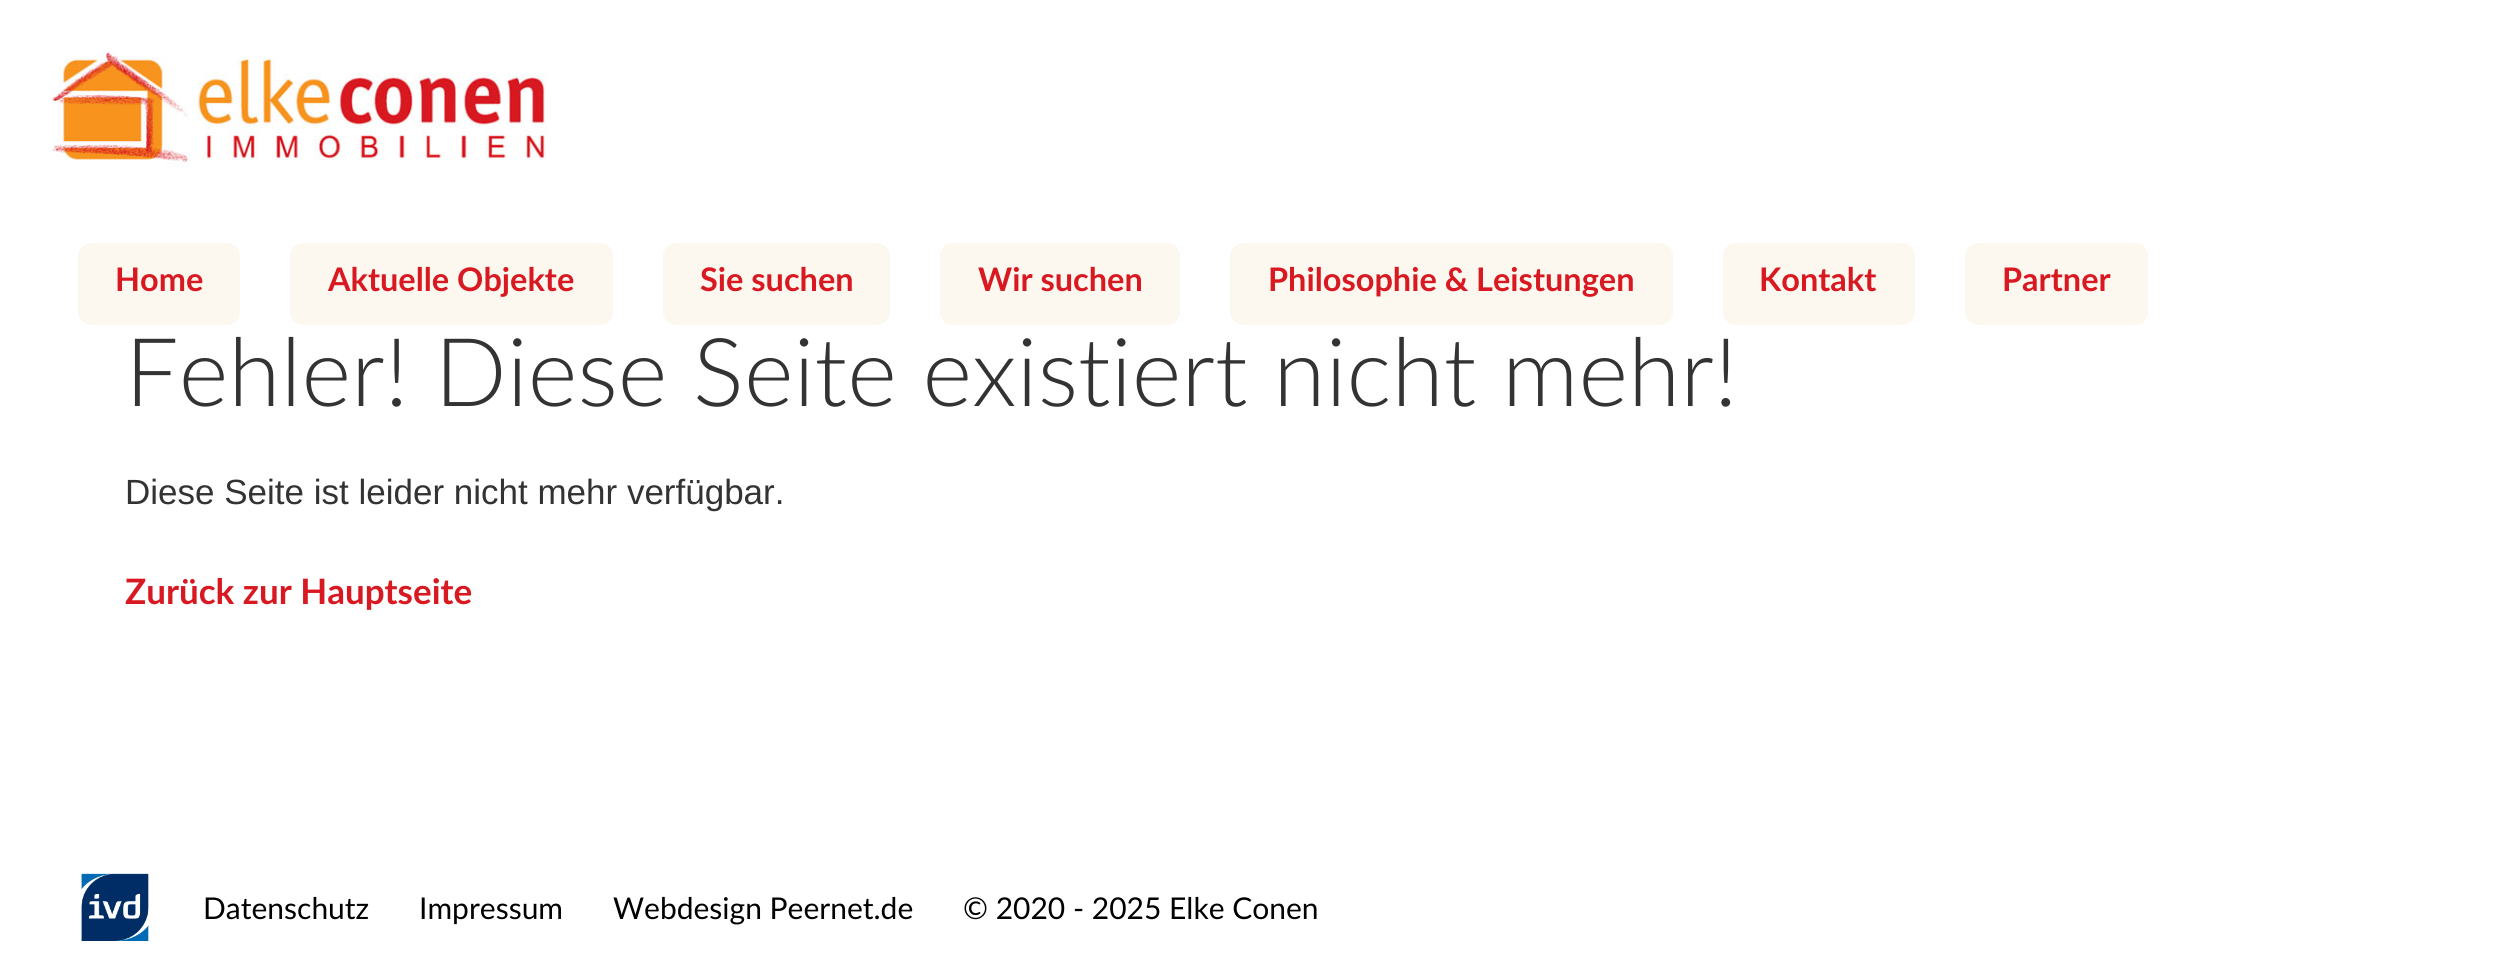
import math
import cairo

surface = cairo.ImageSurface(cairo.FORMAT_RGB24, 2505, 974)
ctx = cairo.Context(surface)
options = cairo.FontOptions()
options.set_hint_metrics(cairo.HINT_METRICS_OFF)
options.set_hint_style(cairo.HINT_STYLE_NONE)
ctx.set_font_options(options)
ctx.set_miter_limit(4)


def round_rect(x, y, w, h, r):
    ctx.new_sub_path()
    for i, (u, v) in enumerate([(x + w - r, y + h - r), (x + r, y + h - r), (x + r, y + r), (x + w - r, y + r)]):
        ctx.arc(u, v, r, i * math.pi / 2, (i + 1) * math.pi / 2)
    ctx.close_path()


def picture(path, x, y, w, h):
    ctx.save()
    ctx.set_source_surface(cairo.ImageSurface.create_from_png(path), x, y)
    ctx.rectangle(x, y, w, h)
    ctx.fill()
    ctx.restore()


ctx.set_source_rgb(1, 1, 1)
ctx.paint()
picture("img1.png", 50, 50, 497, 118)
ctx.set_source_rgb(0.988, 0.969, 0.941)
round_rect(78, 243, 162, 82, 13)
ctx.fill()
ctx.select_font_face("Lato", cairo.FONT_SLANT_NORMAL, cairo.FONT_WEIGHT_BOLD)
ctx.set_font_size(32.5)
ctx.set_source_rgb(0.847, 0.098, 0.129)
ctx.move_to(115, 291)
ctx.show_text("Home")
ctx.set_source_rgb(0.988, 0.969, 0.941)
round_rect(290, 243, 323, 82, 13)
ctx.fill()
ctx.set_source_rgb(0.847, 0.098, 0.129)
ctx.move_to(328, 291)
ctx.show_text("Aktuelle Objekte")
ctx.set_source_rgb(0.988, 0.969, 0.941)
round_rect(663, 243, 227, 82, 13)
ctx.fill()
ctx.set_source_rgb(0.847, 0.098, 0.129)
ctx.move_to(700, 291)
ctx.show_text("Sie suchen")
ctx.set_source_rgb(0.988, 0.969, 0.941)
round_rect(940, 243, 240, 82, 13)
ctx.fill()
ctx.set_source_rgb(0.847, 0.098, 0.129)
ctx.move_to(978, 291)
ctx.show_text("Wir suchen")
ctx.set_source_rgb(0.988, 0.969, 0.941)
round_rect(1230, 243, 443, 82, 13)
ctx.fill()
ctx.set_source_rgb(0.847, 0.098, 0.129)
ctx.move_to(1268, 291)
ctx.show_text("Philosophie & Leistungen")
ctx.set_source_rgb(0.988, 0.969, 0.941)
round_rect(1723, 243, 192, 82, 13)
ctx.fill()
ctx.set_source_rgb(0.847, 0.098, 0.129)
ctx.move_to(1759, 291)
ctx.show_text("Kontakt")
ctx.set_source_rgb(0.988, 0.969, 0.941)
round_rect(1965, 243, 183, 82, 13)
ctx.fill()
ctx.set_source_rgb(0.847, 0.098, 0.129)
ctx.move_to(2002, 291)
ctx.show_text("Partner")
ctx.select_font_face("Lato Light")
ctx.set_font_size(95)
ctx.set_source_rgb(0.2, 0.2, 0.2)
ctx.move_to(125, 406)
ctx.show_text("Fehler! Diese Seite existiert nicht mehr!")
ctx.select_font_face("Liberation Sans")
ctx.set_font_size(35)
ctx.move_to(125, 504)
ctx.show_text("Diese Seite ist leider nicht mehr verfügbar.")
ctx.select_font_face("Lato", cairo.FONT_SLANT_NORMAL, cairo.FONT_WEIGHT_BOLD)
ctx.set_source_rgb(0.847, 0.098, 0.129)
ctx.move_to(125, 604)
ctx.show_text("Zurück zur Hauptseite")
picture("img2.png", 81, 873, 68, 68)
ctx.select_font_face("Lato")
ctx.set_font_size(30)
ctx.set_source_rgb(0, 0, 0)
ctx.move_to(203, 919)
ctx.show_text("Datenschutz")
ctx.move_to(419, 919)
ctx.show_text("Impressum")
ctx.move_to(613, 919)
ctx.show_text("Webdesign Peernet.de")
ctx.move_to(963, 919)
ctx.show_text("© 2020 - 2025 Elke Conen")
surface.write_to_png("page.png")
